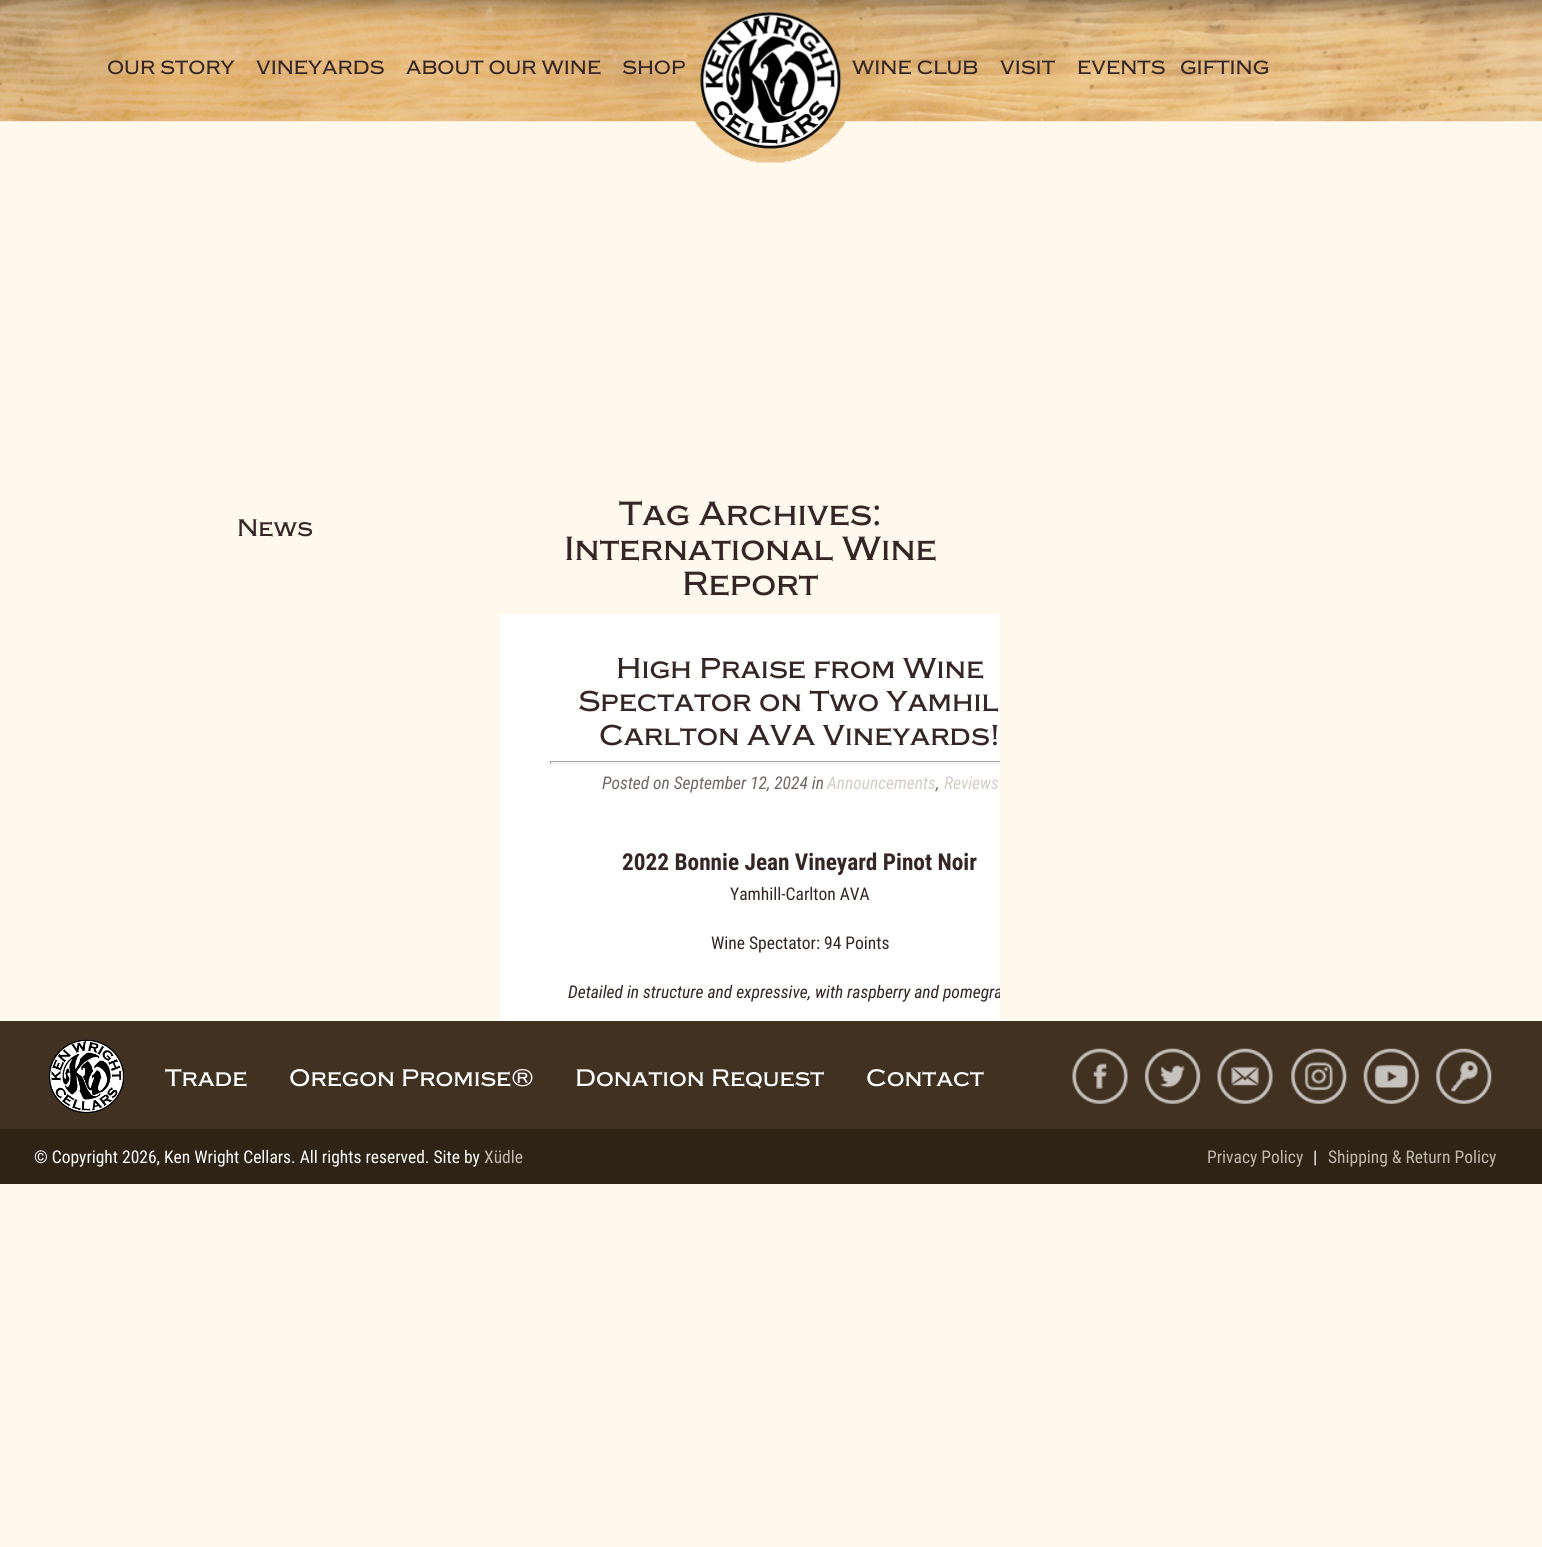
import math
import cairo

surface = cairo.ImageSurface(cairo.FORMAT_RGB24, 1542, 1547)
ctx = cairo.Context(surface)
options = cairo.FontOptions()
options.set_hint_metrics(cairo.HINT_METRICS_OFF)
options.set_hint_style(cairo.HINT_STYLE_NONE)
ctx.set_font_options(options)
ctx.set_miter_limit(4)


def picture(path, x, y, w, h):
    ctx.save()
    ctx.set_source_surface(cairo.ImageSurface.create_from_png(path), x, y)
    ctx.rectangle(x, y, w, h)
    ctx.fill()
    ctx.restore()


ctx.set_source_rgb(0.996, 0.969, 0.929)
ctx.paint()
picture("img1.png", 0, 0, 1542, 122)
picture("img3.png", 695, 121, 150, 42)
picture("img2.png", 700, 9, 146, 140)
ctx.select_font_face("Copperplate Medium")
ctx.set_font_size(20)
ctx.set_source_rgb(0.208, 0.149, 0.145)
ctx.move_to(107, 74)
ctx.show_text("OUR STORY")
ctx.move_to(256, 74)
ctx.show_text("VINEYARDS")
ctx.move_to(406, 74)
ctx.show_text("ABOUT OUR WINE")
ctx.move_to(622, 74)
ctx.show_text("SHOP")
ctx.move_to(852, 74)
ctx.show_text("WINE CLUB")
ctx.move_to(1000, 74)
ctx.show_text("VISIT")
ctx.move_to(1077, 74)
ctx.show_text("EVENTS")
ctx.move_to(1180, 74)
ctx.show_text("GIFTING")
ctx.set_font_size(25)
ctx.move_to(237, 536)
ctx.show_text("News")
ctx.set_font_size(35)
ctx.move_to(619, 525)
ctx.show_text("Tag Archives:")
ctx.move_to(564, 560)
ctx.show_text("International Wine")
ctx.move_to(682, 595)
ctx.show_text("Report")
ctx.set_source_rgb(1, 1, 1)
ctx.rectangle(500, 614, 500, 407)
ctx.fill()
ctx.set_font_size(30)
ctx.set_source_rgb(0.208, 0.149, 0.145)
ctx.move_to(616, 678)
ctx.show_text("High Praise from Wine")
ctx.move_to(578, 711)
ctx.show_text("Spectator on Two Yamhil")
ctx.move_to(599, 745)
ctx.show_text("Carlton AVA Vineyards!")
ctx.set_source_rgb(0.624, 0.624, 0.624)
ctx.rectangle(550, 761, 450, 1)
ctx.fill()
ctx.set_source_rgb(0.933, 0.933, 0.933)
ctx.rectangle(550, 763, 450, 1)
ctx.fill()
ctx.set_source_rgb(0.624, 0.624, 0.624)
ctx.rectangle(550, 761, 1, 3)
ctx.fill()
ctx.select_font_face("Roboto Condensed", cairo.FONT_SLANT_ITALIC)
ctx.set_font_size(17.5)
ctx.set_source_rgb(0.447, 0.404, 0.4)
ctx.move_to(602, 789)
ctx.show_text("Posted on September 12, 2024 in")
ctx.set_source_rgb(0.831, 0.804, 0.78)
ctx.move_to(827, 789)
ctx.show_text("Announcements")
ctx.set_source_rgb(0.447, 0.404, 0.4)
ctx.move_to(936, 789)
ctx.show_text(",")
ctx.set_source_rgb(0.831, 0.804, 0.78)
ctx.move_to(944, 789)
ctx.show_text("Reviews")
ctx.select_font_face("Roboto Condensed", cairo.FONT_SLANT_NORMAL, cairo.FONT_WEIGHT_BOLD)
ctx.set_font_size(23.3)
ctx.set_source_rgb(0.208, 0.149, 0.145)
ctx.move_to(622, 870)
ctx.show_text("2022 Bonnie Jean Vineyard Pinot Noir")
ctx.select_font_face("Roboto Condensed")
ctx.set_font_size(17.5)
ctx.move_to(730, 900)
ctx.show_text("Yamhill-Carlton AVA")
ctx.move_to(711, 949)
ctx.show_text("Wine Spectator: 94 Points")
ctx.save()
ctx.rectangle(500, 614, 500, 407)
ctx.clip()
ctx.select_font_face("Roboto Condensed", cairo.FONT_SLANT_ITALIC)
ctx.move_to(568, 998)
ctx.show_text("Detailed in structure and expressive, with raspberry and pomegra")
ctx.restore()
ctx.set_source_rgb(0.255, 0.192, 0.129)
ctx.rectangle(0, 1021, 1542, 108)
ctx.fill()
picture("img4.png", 48, 1039, 77, 75)
ctx.select_font_face("Copperplate Medium")
ctx.set_font_size(25)
ctx.set_source_rgb(1, 1, 1)
ctx.move_to(165, 1086)
ctx.show_text("Trade")
ctx.move_to(289, 1086)
ctx.show_text("Oregon Promise®")
ctx.move_to(575, 1086)
ctx.show_text("Donation Request")
ctx.move_to(866, 1086)
ctx.show_text("Contact")
picture("img5.png", 1072, 1048, 56, 56)
picture("img6.png", 1144, 1048, 57, 56)
picture("img7.png", 1217, 1048, 56, 56)
picture("img8.png", 1291, 1048, 56, 56)
picture("img9.png", 1363, 1048, 56, 56)
picture("img10.png", 1436, 1048, 56, 56)
ctx.set_source_rgb(0.184, 0.137, 0.086)
ctx.rectangle(0, 1129, 1542, 55)
ctx.fill()
ctx.select_font_face("Roboto Condensed")
ctx.set_font_size(17.5)
ctx.set_source_rgb(1, 1, 1)
ctx.move_to(34, 1163)
ctx.show_text("© Copyright 2026, Ken Wright Cellars. All rights reserved. Site by")
ctx.set_source_rgb(0.761, 0.722, 0.686)
ctx.move_to(484, 1163)
ctx.show_text("Xüdle")
ctx.move_to(1207, 1163)
ctx.show_text("Privacy Policy")
ctx.set_source_rgb(1, 1, 1)
ctx.move_to(1313, 1163)
ctx.show_text("|")
ctx.set_source_rgb(0.761, 0.722, 0.686)
ctx.move_to(1328, 1163)
ctx.show_text("Shipping & Return Policy")
surface.write_to_png("page.png")
